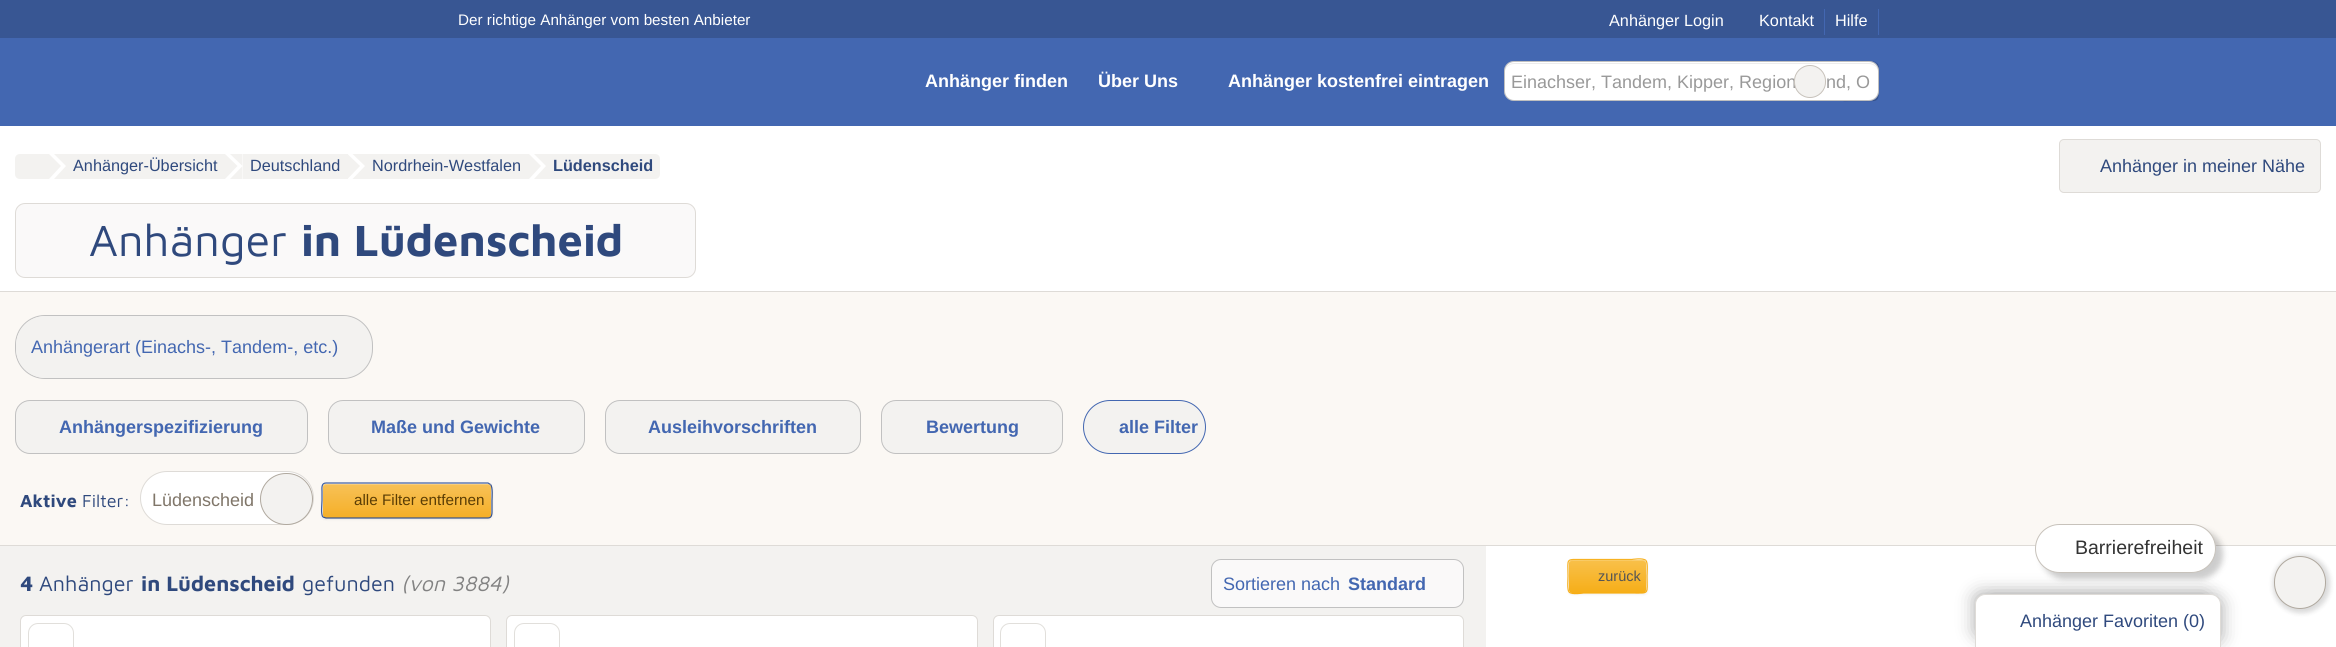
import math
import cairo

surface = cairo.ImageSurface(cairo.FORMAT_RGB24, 2336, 647)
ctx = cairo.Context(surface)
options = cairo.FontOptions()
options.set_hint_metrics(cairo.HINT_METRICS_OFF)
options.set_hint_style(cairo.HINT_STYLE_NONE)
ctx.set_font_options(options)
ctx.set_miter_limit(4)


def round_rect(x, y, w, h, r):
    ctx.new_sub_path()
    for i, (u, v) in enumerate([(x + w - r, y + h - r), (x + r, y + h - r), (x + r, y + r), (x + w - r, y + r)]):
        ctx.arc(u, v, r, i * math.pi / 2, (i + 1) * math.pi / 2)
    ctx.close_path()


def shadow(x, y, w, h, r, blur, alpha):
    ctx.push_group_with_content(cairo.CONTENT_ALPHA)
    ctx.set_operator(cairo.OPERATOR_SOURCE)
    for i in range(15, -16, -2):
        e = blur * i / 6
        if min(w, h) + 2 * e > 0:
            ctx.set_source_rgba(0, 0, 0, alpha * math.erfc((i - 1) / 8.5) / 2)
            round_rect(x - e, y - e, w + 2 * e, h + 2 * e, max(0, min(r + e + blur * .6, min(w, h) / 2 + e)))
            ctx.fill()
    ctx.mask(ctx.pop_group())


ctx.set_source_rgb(1, 1, 1)
ctx.paint()
ctx.set_source_rgb(0.22, 0.337, 0.576)
ctx.rectangle(0, 0, 2336, 38)
ctx.fill()
ctx.select_font_face("Liberation Sans")
ctx.set_font_size(15.25)
ctx.set_source_rgb(1, 1, 1)
ctx.move_to(458, 25)
ctx.show_text("Der richtige Anhänger vom besten Anbieter")
ctx.set_font_size(16.25)
ctx.move_to(1609, 26)
ctx.show_text("Anhänger Login")
ctx.set_source_rgb(0.263, 0.404, 0.694)
ctx.rectangle(1824, 9, 1, 26)
ctx.fill()
ctx.set_source_rgb(1, 1, 1)
ctx.move_to(1759, 26)
ctx.show_text("Kontakt")
ctx.set_source_rgb(0.263, 0.404, 0.694)
ctx.rectangle(1878, 9, 1, 26)
ctx.fill()
ctx.set_source_rgb(1, 1, 1)
ctx.move_to(1835, 26)
ctx.show_text("Hilfe")
ctx.set_source_rgb(0.984, 0.969, 0.957)
ctx.rectangle(0, 292, 2336, 253)
ctx.fill()
ctx.set_source_rgb(0.871, 0.859, 0.843)
ctx.rectangle(0, 545, 2336, 1)
ctx.fill()
ctx.set_source_rgb(0, 0, 0)
shadow(2041, 530, 182, 49, 24.5, 3, 0.2)
shadow(1988, 600, 233, 41, 4, 9.5, 0.3)
shadow(1975, 594, 234, 41, 4, 9.5, 0.3)
ctx.set_source_rgb(1, 1, 1)
round_rect(2035.5, 524.5, 180, 48, 24)
ctx.fill_preserve()
ctx.set_source_rgb(0.78, 0.761, 0.733)
ctx.set_line_width(1)
ctx.stroke()
ctx.set_font_size(19.5)
ctx.set_source_rgb(0.2, 0.2, 0.2)
ctx.move_to(2075, 554)
ctx.show_text("Barrierefreiheit")
ctx.set_source_rgb(0.263, 0.404, 0.694)
ctx.rectangle(0, 38, 2336, 88)
ctx.fill()
ctx.select_font_face("Liberation Sans", cairo.FONT_SLANT_NORMAL, cairo.FONT_WEIGHT_BOLD)
ctx.set_font_size(18)
ctx.set_source_rgb(1, 1, 1)
ctx.move_to(925, 87)
ctx.show_text("Anhänger finden")
ctx.move_to(1098, 87)
ctx.show_text("Über Uns")
ctx.move_to(1228, 87)
ctx.show_text("Anhänger kostenfrei eintragen")
gradient = cairo.LinearGradient(1859, 63, 1859, 100)
gradient.add_color_stop_rgba(0, 0.318, 0.455, 0.741, 1)
gradient.add_color_stop_rgba(1, 0.235, 0.361, 0.624, 1)
ctx.set_source(gradient)
round_rect(1840, 63, 38, 37, 4)
ctx.fill()
ctx.new_path()
ctx.move_to(1876.5, 63.5)
ctx.curve_to(1879, 65.5, 1878, 69, 1878, 71.5)
ctx.line_to(1878, 81)
ctx.curve_to(1878, 103.5, 1881, 100.5, 1859, 100.5)
ctx.line_to(1849, 100.5)
ctx.curve_to(1846.5, 100.5, 1843, 101.5, 1841, 99)
ctx.set_source_rgb(0.208, 0.318, 0.549)
ctx.set_line_width(1.2)
ctx.stroke()
ctx.new_path()
ctx.move_to(1841, 99)
ctx.curve_to(1838.5, 97, 1839.5, 93.5, 1839.5, 91)
ctx.line_to(1839.5, 81)
ctx.curve_to(1839.5, 59, 1836.5, 62, 1859, 62)
ctx.line_to(1868.5, 62)
ctx.curve_to(1871, 62, 1874.5, 61, 1876.5, 63.5)
ctx.set_source_rgb(0.235, 0.361, 0.624)
ctx.stroke()
ctx.set_source_rgb(1, 1, 1)
round_rect(1504, 61, 375, 40, 10)
ctx.fill()
ctx.set_source_rgb(0.925, 0.925, 0.925)
ctx.new_path()
ctx.move_to(1514, 64)
ctx.line_to(1869, 64)
ctx.curve_to(1874, 64, 1878, 68, 1878, 72)
ctx.curve_to(1878, 67, 1874, 63, 1869, 63)
ctx.line_to(1514, 63)
ctx.curve_to(1509, 63, 1505, 67, 1505, 72)
ctx.curve_to(1505, 68, 1509, 64, 1514, 64)
ctx.close_path()
ctx.fill()
round_rect(1504.5, 61.5, 374, 39, 9.5)
ctx.set_source_rgba(0, 0, 0, 0.25)
ctx.set_line_width(1)
ctx.stroke()
ctx.select_font_face("Liberation Sans")
ctx.set_source_rgb(0.6, 0.6, 0.6)
ctx.move_to(1511, 88)
ctx.show_text("Einachser, Tandem, Kipper, Region")
ctx.set_source_rgb(0.953, 0.949, 0.941)
round_rect(1794.5, 65.5, 31, 32, 15.5)
ctx.fill_preserve()
ctx.set_source_rgb(0.78, 0.761, 0.733)
ctx.stroke()
ctx.set_source_rgb(0.6, 0.6, 0.6)
ctx.move_to(1826, 88)
ctx.show_text("nd, O")
ctx.set_source_rgb(0.953, 0.949, 0.941)
ctx.new_path()
ctx.move_to(20, 154)
ctx.line_to(49, 154)
ctx.line_to(49, 179)
ctx.line_to(20, 179)
ctx.curve_to(17, 179, 15, 177, 15, 174)
ctx.line_to(15, 159)
ctx.curve_to(15, 156, 17, 154, 20, 154)
ctx.close_path()
ctx.fill()
ctx.new_path()
ctx.move_to(54, 154)
ctx.line_to(66, 154)
ctx.line_to(66, 166)
ctx.close_path()
ctx.move_to(66, 179)
ctx.line_to(54, 179)
ctx.line_to(66, 166)
ctx.close_path()
ctx.fill()
ctx.new_path()
ctx.move_to(49, 179)
ctx.line_to(49, 154)
ctx.line_to(61, 166)
ctx.close_path()
ctx.fill()
ctx.rectangle(66, 154, 159, 25)
ctx.fill()
ctx.set_font_size(16.25)
ctx.set_source_rgb(0.184, 0.286, 0.49)
ctx.move_to(73, 171)
ctx.show_text("Anhänger-Übersicht")
ctx.set_source_rgb(0.953, 0.949, 0.941)
ctx.new_path()
ctx.move_to(230, 154)
ctx.line_to(242.5, 154)
ctx.line_to(242.5, 166)
ctx.close_path()
ctx.move_to(242.5, 179)
ctx.line_to(230, 179)
ctx.line_to(242.5, 166)
ctx.close_path()
ctx.fill()
ctx.new_path()
ctx.move_to(225, 179)
ctx.line_to(225, 154)
ctx.line_to(237.5, 166)
ctx.close_path()
ctx.fill()
ctx.rectangle(243, 154, 105, 25)
ctx.fill()
ctx.set_source_rgb(0.184, 0.286, 0.49)
ctx.move_to(250, 171)
ctx.show_text("Deutschland")
ctx.set_source_rgb(0.953, 0.949, 0.941)
ctx.new_path()
ctx.move_to(352.5, 154)
ctx.line_to(365, 154)
ctx.line_to(365, 166)
ctx.close_path()
ctx.move_to(365, 179)
ctx.line_to(352.5, 179)
ctx.line_to(365, 166)
ctx.close_path()
ctx.fill()
ctx.new_path()
ctx.move_to(347.5, 179)
ctx.line_to(347.5, 154)
ctx.line_to(360, 166)
ctx.close_path()
ctx.fill()
ctx.rectangle(365, 154, 164, 25)
ctx.fill()
ctx.set_source_rgb(0.184, 0.286, 0.49)
ctx.move_to(372, 171)
ctx.show_text("Nordrhein-Westfalen")
ctx.set_source_rgb(0.953, 0.949, 0.941)
ctx.new_path()
ctx.move_to(534, 154)
ctx.line_to(546, 154)
ctx.line_to(546, 166)
ctx.close_path()
ctx.move_to(546, 179)
ctx.line_to(534, 179)
ctx.line_to(546, 166)
ctx.close_path()
ctx.fill()
ctx.new_path()
ctx.move_to(529, 179)
ctx.line_to(529, 154)
ctx.line_to(541, 166)
ctx.close_path()
ctx.fill()
ctx.new_path()
ctx.move_to(546, 154)
ctx.line_to(655, 154)
ctx.curve_to(658, 154, 660, 156, 660, 159)
ctx.line_to(660, 174)
ctx.curve_to(660, 177, 658, 179, 655, 179)
ctx.line_to(546, 179)
ctx.close_path()
ctx.fill()
ctx.select_font_face("Liberation Sans", cairo.FONT_SLANT_NORMAL, cairo.FONT_WEIGHT_BOLD)
ctx.set_source_rgb(0.184, 0.286, 0.49)
ctx.move_to(553, 171)
ctx.show_text("Lüdenscheid")
ctx.set_source_rgb(0.953, 0.949, 0.941)
round_rect(2059.5, 139.5, 261, 53, 4.5)
ctx.fill_preserve()
ctx.set_source_rgb(0.871, 0.859, 0.843)
ctx.stroke()
ctx.select_font_face("Liberation Sans")
ctx.set_font_size(18)
ctx.set_source_rgb(0.184, 0.286, 0.49)
ctx.move_to(2100, 172)
ctx.show_text("Anhänger in meiner Nähe")
ctx.set_source_rgb(0.98, 0.976, 0.976)
round_rect(15.5, 203.5, 680, 74, 9.5)
ctx.fill_preserve()
ctx.set_source_rgb(0.871, 0.859, 0.843)
ctx.stroke()
ctx.select_font_face("Maven Pro")
ctx.set_font_size(45)
ctx.set_source_rgb(0.184, 0.286, 0.49)
ctx.move_to(89, 256)
ctx.show_text("Anhänger")
ctx.select_font_face("Maven Pro", cairo.FONT_SLANT_NORMAL, cairo.FONT_WEIGHT_BOLD)
ctx.move_to(301, 256)
ctx.show_text("in Lüdenscheid")
ctx.set_source_rgb(0.871, 0.859, 0.843)
ctx.rectangle(0, 291, 2336, 1)
ctx.fill()
ctx.set_source_rgb(0.953, 0.949, 0.941)
round_rect(15.5, 315.5, 357, 63, 29.5)
ctx.fill_preserve()
ctx.set_source_rgb(0.757, 0.757, 0.757)
ctx.stroke()
ctx.set_source_rgb(0.953, 0.949, 0.941)
round_rect(16, 316, 355, 62, 30)
ctx.fill()
ctx.select_font_face("Liberation Sans")
ctx.set_font_size(18)
ctx.set_source_rgb(0.263, 0.404, 0.694)
ctx.move_to(31, 353)
ctx.show_text("Anhängerart (Einachs-, Tandem-, etc.)")
ctx.set_source_rgb(0.953, 0.949, 0.941)
round_rect(15.5, 400.5, 292, 53, 14.5)
ctx.fill_preserve()
ctx.set_source_rgb(0.757, 0.757, 0.757)
ctx.stroke()
ctx.select_font_face("Liberation Sans", cairo.FONT_SLANT_NORMAL, cairo.FONT_WEIGHT_BOLD)
ctx.set_source_rgb(0.263, 0.404, 0.694)
ctx.move_to(59, 433)
ctx.show_text("Anhängerspezifizierung")
ctx.set_source_rgb(0.953, 0.949, 0.941)
round_rect(328.5, 400.5, 256, 53, 14.5)
ctx.fill_preserve()
ctx.set_source_rgb(0.757, 0.757, 0.757)
ctx.stroke()
ctx.set_source_rgb(0.263, 0.404, 0.694)
ctx.move_to(371, 433)
ctx.show_text("Maße und Gewichte")
ctx.set_source_rgb(0.953, 0.949, 0.941)
round_rect(605.5, 400.5, 255, 53, 14.5)
ctx.fill_preserve()
ctx.set_source_rgb(0.757, 0.757, 0.757)
ctx.stroke()
ctx.set_source_rgb(0.263, 0.404, 0.694)
ctx.move_to(648, 433)
ctx.show_text("Ausleihvorschriften")
ctx.set_source_rgb(0.953, 0.949, 0.941)
round_rect(881.5, 400.5, 181, 53, 14.5)
ctx.fill_preserve()
ctx.set_source_rgb(0.757, 0.757, 0.757)
ctx.stroke()
ctx.set_source_rgb(0.263, 0.404, 0.694)
ctx.move_to(926, 433)
ctx.show_text("Bewertung")
ctx.set_source_rgb(0.953, 0.949, 0.941)
round_rect(1083.5, 400.5, 122, 53, 26.5)
ctx.fill_preserve()
ctx.set_source_rgb(0.263, 0.404, 0.694)
ctx.stroke()
ctx.move_to(1119, 433)
ctx.show_text("alle Filter")
ctx.select_font_face("Maven Pro", cairo.FONT_SLANT_NORMAL, cairo.FONT_WEIGHT_BOLD)
ctx.set_source_rgb(0.184, 0.286, 0.49)
ctx.move_to(20, 507)
ctx.show_text("Aktive")
ctx.select_font_face("Maven Pro")
ctx.move_to(82, 507)
ctx.show_text("Filter:")
ctx.set_source_rgb(1, 1, 1)
round_rect(140.5, 471.5, 173, 53, 26.5)
ctx.fill_preserve()
ctx.set_source_rgb(0.871, 0.859, 0.843)
ctx.stroke()
ctx.select_font_face("Liberation Sans")
ctx.set_source_rgb(0.502, 0.463, 0.412)
ctx.move_to(152, 506)
ctx.show_text("Lüdenscheid")
ctx.set_source_rgb(0.953, 0.949, 0.941)
round_rect(260.5, 473.5, 52, 51, 25.5)
ctx.fill_preserve()
ctx.set_source_rgb(0.69, 0.663, 0.624)
ctx.stroke()
ctx.set_source_rgb(0, 0, 0)
shadow(321, 484, 172, 36, 5, 1, 0.05)
gradient = cairo.LinearGradient(407, 484, 407, 518)
gradient.add_color_stop_rgba(0, 0.969, 0.757, 0.341, 1)
gradient.add_color_stop_rgba(1, 0.961, 0.686, 0.153, 1)
ctx.set_source(gradient)
round_rect(323, 484, 168, 34, 3)
ctx.fill()
ctx.set_source_rgb(0.976, 0.804, 0.471)
ctx.new_path()
ctx.move_to(326, 485)
ctx.line_to(488, 485)
ctx.curve_to(490, 485, 491, 486, 491, 488)
ctx.curve_to(491, 486, 490, 484, 488, 484)
ctx.line_to(326, 484)
ctx.curve_to(325, 484, 324, 485, 323, 486)
ctx.close_path()
ctx.fill()
ctx.new_path()
ctx.move_to(490.5, 484.5)
ctx.curve_to(493, 487, 492, 497.5, 492, 500.5)
ctx.line_to(492, 509.5)
ctx.curve_to(492, 512.5, 492.5, 518, 488, 518)
ctx.line_to(326, 518)
ctx.line_to(323, 517)
ctx.set_source_rgb(0.208, 0.318, 0.549)
ctx.set_line_width(1.2)
ctx.stroke()
ctx.new_path()
ctx.move_to(323, 517)
ctx.curve_to(320.5, 514.5, 322, 504, 322, 500.5)
ctx.line_to(322, 491.5)
ctx.curve_to(322, 488.5, 321, 483, 326, 483)
ctx.line_to(488, 483)
ctx.line_to(490.5, 484.5)
ctx.set_source_rgb(0.235, 0.361, 0.624)
ctx.stroke()
ctx.set_font_size(15.25)
ctx.set_source_rgb(0.357, 0.239, 0.016)
ctx.move_to(354, 505)
ctx.show_text("alle Filter entfernen")
ctx.set_source_rgb(0.953, 0.949, 0.941)
ctx.rectangle(0, 546, 1486, 101)
ctx.fill()
ctx.select_font_face("Maven Pro", cairo.FONT_SLANT_NORMAL, cairo.FONT_WEIGHT_BOLD)
ctx.set_font_size(21.5)
ctx.set_source_rgb(0.184, 0.286, 0.49)
ctx.move_to(20, 591)
ctx.show_text("4")
ctx.select_font_face("Maven Pro")
ctx.move_to(39, 591)
ctx.show_text("Anhänger")
ctx.select_font_face("Maven Pro", cairo.FONT_SLANT_NORMAL, cairo.FONT_WEIGHT_BOLD)
ctx.move_to(141, 591)
ctx.show_text("in Lüdenscheid")
ctx.select_font_face("Maven Pro")
ctx.move_to(302, 591)
ctx.show_text("gefunden")
ctx.select_font_face("Maven Pro", cairo.FONT_SLANT_ITALIC)
ctx.set_source_rgb(0.51, 0.51, 0.51)
ctx.move_to(401, 591)
ctx.show_text("(von 3884)")
ctx.set_source_rgb(0.98, 0.976, 0.976)
round_rect(1211.5, 559.5, 252, 48, 9.5)
ctx.fill_preserve()
ctx.set_source_rgb(0.757, 0.757, 0.757)
ctx.set_line_width(1)
ctx.stroke()
ctx.select_font_face("Liberation Sans")
ctx.set_font_size(18)
ctx.set_source_rgb(0.263, 0.404, 0.694)
ctx.move_to(1223, 590)
ctx.show_text("Sortieren nach")
ctx.select_font_face("Liberation Sans", cairo.FONT_SLANT_NORMAL, cairo.FONT_WEIGHT_BOLD)
ctx.move_to(1348, 590)
ctx.show_text("Standard")
ctx.set_source_rgb(1, 1, 1)
round_rect(20.5, 615.5, 470, 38, 5.5)
ctx.fill_preserve()
ctx.set_source_rgb(0.871, 0.859, 0.843)
ctx.stroke()
round_rect(28.5, 623.5, 45, 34, 9.5)
ctx.set_source_rgb(0.882, 0.875, 0.859)
ctx.stroke()
ctx.set_source_rgb(1, 1, 1)
round_rect(506.5, 615.5, 471, 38, 5.5)
ctx.fill_preserve()
ctx.set_source_rgb(0.871, 0.859, 0.843)
ctx.stroke()
round_rect(514.5, 623.5, 45, 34, 9.5)
ctx.set_source_rgb(0.882, 0.875, 0.859)
ctx.stroke()
ctx.set_source_rgb(1, 1, 1)
round_rect(993.5, 615.5, 470, 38, 5.5)
ctx.fill_preserve()
ctx.set_source_rgb(0.871, 0.859, 0.843)
ctx.stroke()
round_rect(1000.5, 623.5, 45, 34, 9.5)
ctx.set_source_rgb(0.882, 0.875, 0.859)
ctx.stroke()
ctx.set_source_rgb(0, 0, 0)
shadow(1568, 560, 80, 35, 4, 1, 0.05)
gradient = cairo.LinearGradient(1608, 560, 1608, 593)
gradient.add_color_stop_rgba(0, 0.973, 0.753, 0.29, 1)
gradient.add_color_stop_rgba(1, 0.965, 0.682, 0.094, 1)
ctx.set_source(gradient)
round_rect(1569, 560, 77, 33, 3)
ctx.fill()
ctx.set_source_rgba(1, 1, 1, 0.2)
ctx.new_path()
ctx.move_to(1572, 561)
ctx.line_to(1643, 561)
ctx.curve_to(1645, 561, 1646, 563, 1646, 564)
ctx.curve_to(1646, 557, 1635, 560, 1631, 560)
ctx.line_to(1584, 560)
ctx.curve_to(1580, 560, 1569, 557, 1569, 564)
ctx.curve_to(1569, 563, 1570, 561, 1572, 561)
ctx.close_path()
ctx.fill()
ctx.new_path()
ctx.move_to(1646, 560.5)
ctx.curve_to(1648, 563, 1647, 573, 1647, 576)
ctx.curve_to(1647, 595, 1650, 593, 1631.5, 593)
ctx.line_to(1583.5, 593)
ctx.curve_to(1583, 593, 1572, 595, 1569, 592)
ctx.set_source_rgb(0.965, 0.678, 0.078)
ctx.set_line_width(1.2)
ctx.stroke()
ctx.new_path()
ctx.move_to(1569, 592)
ctx.curve_to(1567, 589.5, 1568, 579.5, 1568, 576)
ctx.curve_to(1568, 557.5, 1565, 559.5, 1583.5, 559.5)
ctx.line_to(1631.5, 559.5)
ctx.curve_to(1632, 559.5, 1643, 557.5, 1646, 560.5)
ctx.set_source_rgb(0.965, 0.698, 0.133)
ctx.stroke()
ctx.select_font_face("Liberation Sans")
ctx.set_font_size(14.5)
ctx.set_source_rgb(0.333, 0.333, 0.333)
ctx.move_to(1598, 581)
ctx.show_text("zurück")
ctx.set_source_rgb(0, 0, 0)
shadow(2273, 555, 57, 58, 28.5, 2.5, 0.15)
ctx.set_source_rgb(0.953, 0.949, 0.941)
round_rect(2274.5, 556.5, 51, 52, 25.5)
ctx.fill_preserve()
ctx.set_source_rgb(0.69, 0.663, 0.624)
ctx.set_line_width(1)
ctx.stroke()
ctx.set_source_rgb(1, 1, 1)
ctx.new_path()
ctx.move_to(1985, 594.5)
ctx.line_to(2211, 594.5)
ctx.curve_to(2216, 594.5, 2220.5, 599, 2220.5, 604)
ctx.line_to(2220.5, 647.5)
ctx.line_to(1975.5, 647.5)
ctx.line_to(1975.5, 604)
ctx.curve_to(1975.5, 599, 1980, 594.5, 1985, 594.5)
ctx.close_path()
ctx.fill_preserve()
ctx.set_source_rgb(0.871, 0.859, 0.843)
ctx.stroke()
ctx.set_font_size(18)
ctx.set_source_rgb(0.184, 0.286, 0.49)
ctx.move_to(2020, 627)
ctx.show_text("Anhänger Favoriten (0)")
surface.write_to_png("page.png")
